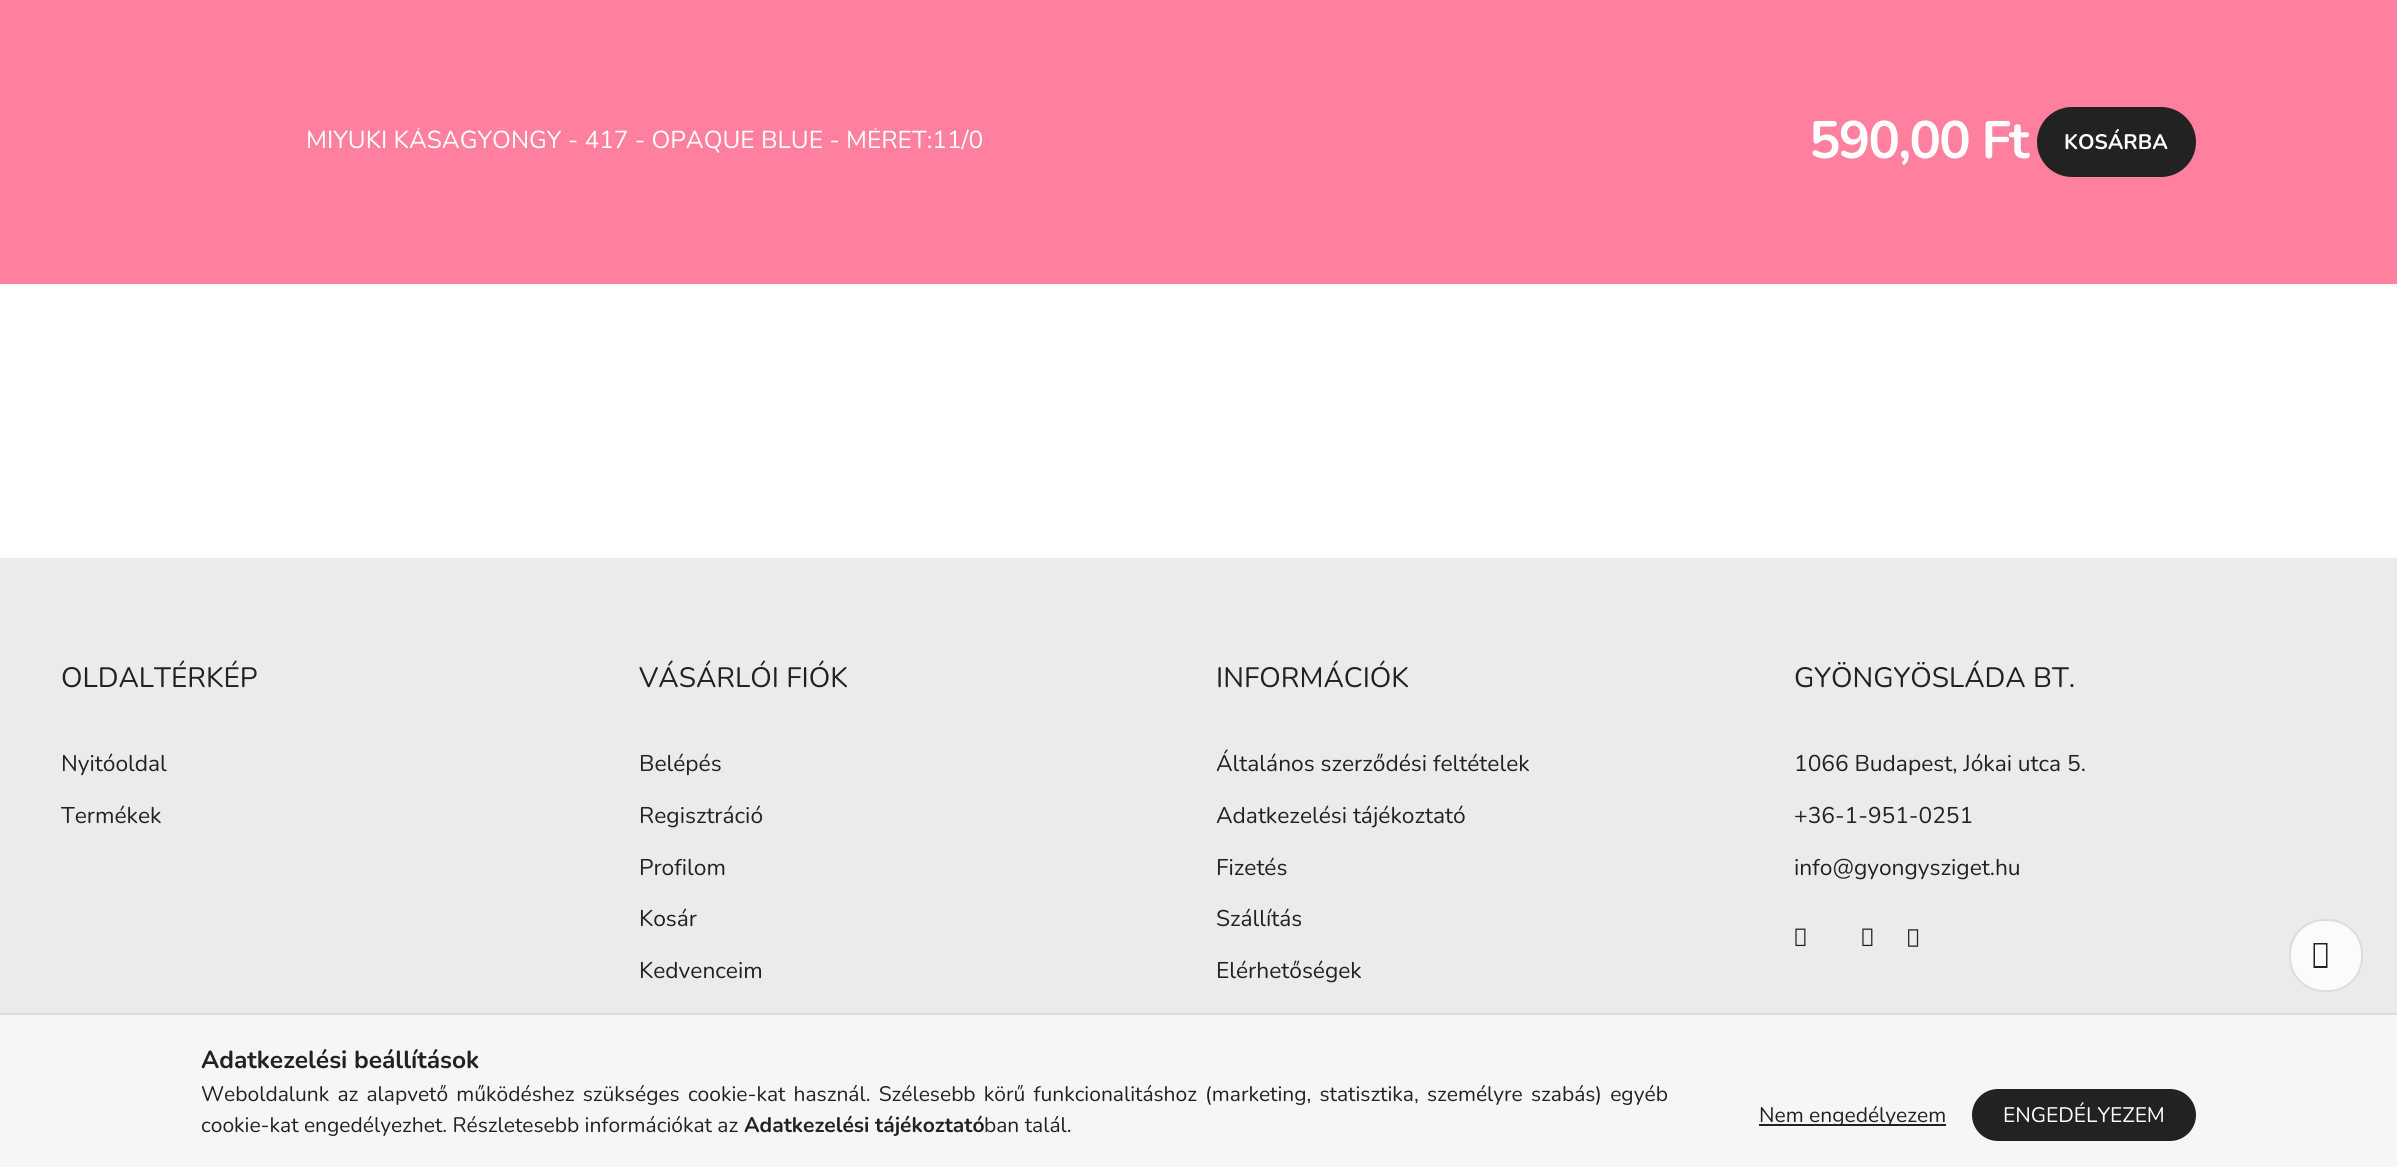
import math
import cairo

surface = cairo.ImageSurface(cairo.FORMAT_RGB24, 2397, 1167)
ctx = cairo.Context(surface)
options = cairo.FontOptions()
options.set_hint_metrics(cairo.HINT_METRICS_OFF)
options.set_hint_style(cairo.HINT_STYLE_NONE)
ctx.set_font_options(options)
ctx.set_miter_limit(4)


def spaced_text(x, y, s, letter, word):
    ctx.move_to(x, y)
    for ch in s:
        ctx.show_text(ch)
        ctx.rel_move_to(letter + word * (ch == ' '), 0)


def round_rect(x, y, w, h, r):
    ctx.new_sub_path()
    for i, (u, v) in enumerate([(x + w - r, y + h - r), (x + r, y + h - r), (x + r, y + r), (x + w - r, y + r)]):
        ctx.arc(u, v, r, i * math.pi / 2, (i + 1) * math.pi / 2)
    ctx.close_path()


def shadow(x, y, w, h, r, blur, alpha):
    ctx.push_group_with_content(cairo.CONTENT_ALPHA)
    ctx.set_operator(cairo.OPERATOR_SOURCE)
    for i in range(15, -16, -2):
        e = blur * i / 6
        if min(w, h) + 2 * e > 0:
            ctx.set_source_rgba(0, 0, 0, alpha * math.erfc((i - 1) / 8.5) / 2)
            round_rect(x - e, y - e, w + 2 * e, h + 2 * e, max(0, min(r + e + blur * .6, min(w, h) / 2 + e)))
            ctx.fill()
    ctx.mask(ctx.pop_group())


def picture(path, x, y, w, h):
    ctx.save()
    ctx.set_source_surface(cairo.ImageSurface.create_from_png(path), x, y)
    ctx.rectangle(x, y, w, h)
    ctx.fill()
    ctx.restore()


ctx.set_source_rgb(1, 1, 1)
ctx.paint()
ctx.set_source_rgb(0, 0, 0)
shadow(0, 2, 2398, 283, 0, 2, 0.07)
ctx.set_source_rgb(1, 0.502, 0.62)
ctx.rectangle(0, 0, 2397, 284)
ctx.fill()
ctx.save()
ctx.rectangle(306, 128, 678, 28)
ctx.clip()
ctx.select_font_face("Nunito")
ctx.set_font_size(24.5)
ctx.set_source_rgb(1, 1, 1)
ctx.move_to(306, 148)
ctx.show_text("MIYUKI KÁSAGYÖNGY - 417 - OPAQUE BLUE - MÉRET:11/0")
ctx.restore()
ctx.select_font_face("Nunito", cairo.FONT_SLANT_NORMAL, cairo.FONT_WEIGHT_BOLD)
ctx.set_font_size(52.5)
ctx.set_source_rgb(1, 1, 1)
spaced_text(1809, 158, "590,00 Ft", -1.75, 0)
ctx.set_source_rgb(0.133, 0.133, 0.133)
round_rect(2038, 108, 157, 68, 34)
ctx.fill_preserve()
ctx.stroke()
ctx.set_font_size(21)
ctx.set_source_rgb(1, 1, 1)
ctx.move_to(2064, 149)
ctx.show_text("KOSÁRBA")
ctx.set_source_rgb(0.918, 0.918, 0.918)
ctx.rectangle(0, 558, 2397, 455)
ctx.fill()
ctx.select_font_face("Nunito")
ctx.set_font_size(28)
ctx.set_source_rgb(0.133, 0.133, 0.133)
ctx.move_to(61, 687)
ctx.show_text("OLDALTÉRKÉP")
ctx.set_font_size(22.75)
ctx.move_to(61, 771)
ctx.show_text("Nyitóoldal")
ctx.move_to(61, 823)
ctx.show_text("Termékek")
ctx.set_font_size(28)
ctx.move_to(639, 687)
ctx.show_text("VÁSÁRLÓI FIÓK")
ctx.set_font_size(22.75)
ctx.move_to(639, 771)
ctx.show_text("Belépés")
ctx.move_to(639, 823)
ctx.show_text("Regisztráció")
ctx.move_to(639, 875)
ctx.show_text("Profilom")
ctx.move_to(639, 926)
ctx.show_text("Kosár")
ctx.move_to(639, 978)
ctx.show_text("Kedvenceim")
ctx.set_font_size(28)
ctx.move_to(1216, 687)
ctx.show_text("INFORMÁCIÓK")
ctx.set_font_size(22.75)
ctx.move_to(1216, 771)
ctx.show_text("Általános szerződési feltételek")
ctx.move_to(1216, 823)
ctx.show_text("Adatkezelési tájékoztató")
ctx.move_to(1216, 875)
ctx.show_text("Fizetés")
ctx.move_to(1216, 926)
ctx.show_text("Szállítás")
ctx.move_to(1216, 978)
ctx.show_text("Elérhetőségek")
ctx.set_font_size(28)
ctx.move_to(1794, 687)
ctx.show_text("GYÖNGYÖSLÁDA BT.")
ctx.set_font_size(22.75)
ctx.move_to(1794, 771)
ctx.show_text("1066 Budapest, Jókai utca 5.")
ctx.move_to(1794, 823)
ctx.show_text("+36-1-951-0251")
ctx.move_to(1794, 875)
ctx.show_text("info@gyongysziget.hu")
picture("img1.png", 1795, 928, 11, 19)
picture("img2.png", 1862, 928, 11, 19)
picture("img3.png", 1908, 929, 11, 18)
ctx.set_source_rgb(0.984, 0.984, 0.984)
round_rect(2290, 920, 72, 71, 34)
ctx.fill_preserve()
ctx.set_source_rgb(0.867, 0.867, 0.867)
ctx.stroke()
ctx.set_source_rgb(0.133, 0.133, 0.133)
ctx.new_path()
ctx.move_to(2313.5, 968)
ctx.line_to(2313.5, 943)
ctx.line_to(2327.5, 943)
ctx.line_to(2327.5, 968)
ctx.close_path()
ctx.move_to(2315, 966)
ctx.line_to(2326, 966)
ctx.line_to(2326, 944.5)
ctx.line_to(2315, 944.5)
ctx.close_path()
ctx.fill()
ctx.set_source_rgb(0.961, 0.961, 0.961)
ctx.rectangle(0, 1015, 2397, 152)
ctx.fill()
ctx.set_source_rgb(0.867, 0.867, 0.867)
ctx.rectangle(0, 1013, 2397, 2)
ctx.fill()
ctx.select_font_face("Nunito", cairo.FONT_SLANT_NORMAL, cairo.FONT_WEIGHT_BOLD)
ctx.set_font_size(24.5)
ctx.set_source_rgb(0.133, 0.133, 0.133)
ctx.move_to(201, 1068)
ctx.show_text("Adatkezelési beállítások")
ctx.select_font_face("Nunito")
ctx.set_font_size(21)
spaced_text(201, 1101, "Weboldalunk az alapvető működéshez szükséges cookie-kat használ. Szélesebb körű funkcionalitáshoz (marketing, statisztika, személyre szabás) egyéb", 0, 2.75)
ctx.move_to(201, 1132)
ctx.show_text("cookie-kat engedélyezhet. Részletesebb információkat az")
ctx.select_font_face("Nunito", cairo.FONT_SLANT_NORMAL, cairo.FONT_WEIGHT_BOLD)
ctx.move_to(744, 1132)
ctx.show_text("Adatkezelési tájékoztató")
ctx.select_font_face("Nunito")
ctx.move_to(984, 1132)
ctx.show_text("ban talál.")
ctx.rectangle(1759, 1124, 187, 2)
ctx.fill()
ctx.move_to(1759, 1122)
ctx.show_text("Nem engedélyezem")
round_rect(1973, 1090, 222, 50, 25)
ctx.fill_preserve()
ctx.stroke()
ctx.set_source_rgb(1, 1, 1)
ctx.move_to(2003, 1122)
ctx.show_text("ENGEDÉLYEZEM")
surface.write_to_png("page.png")
